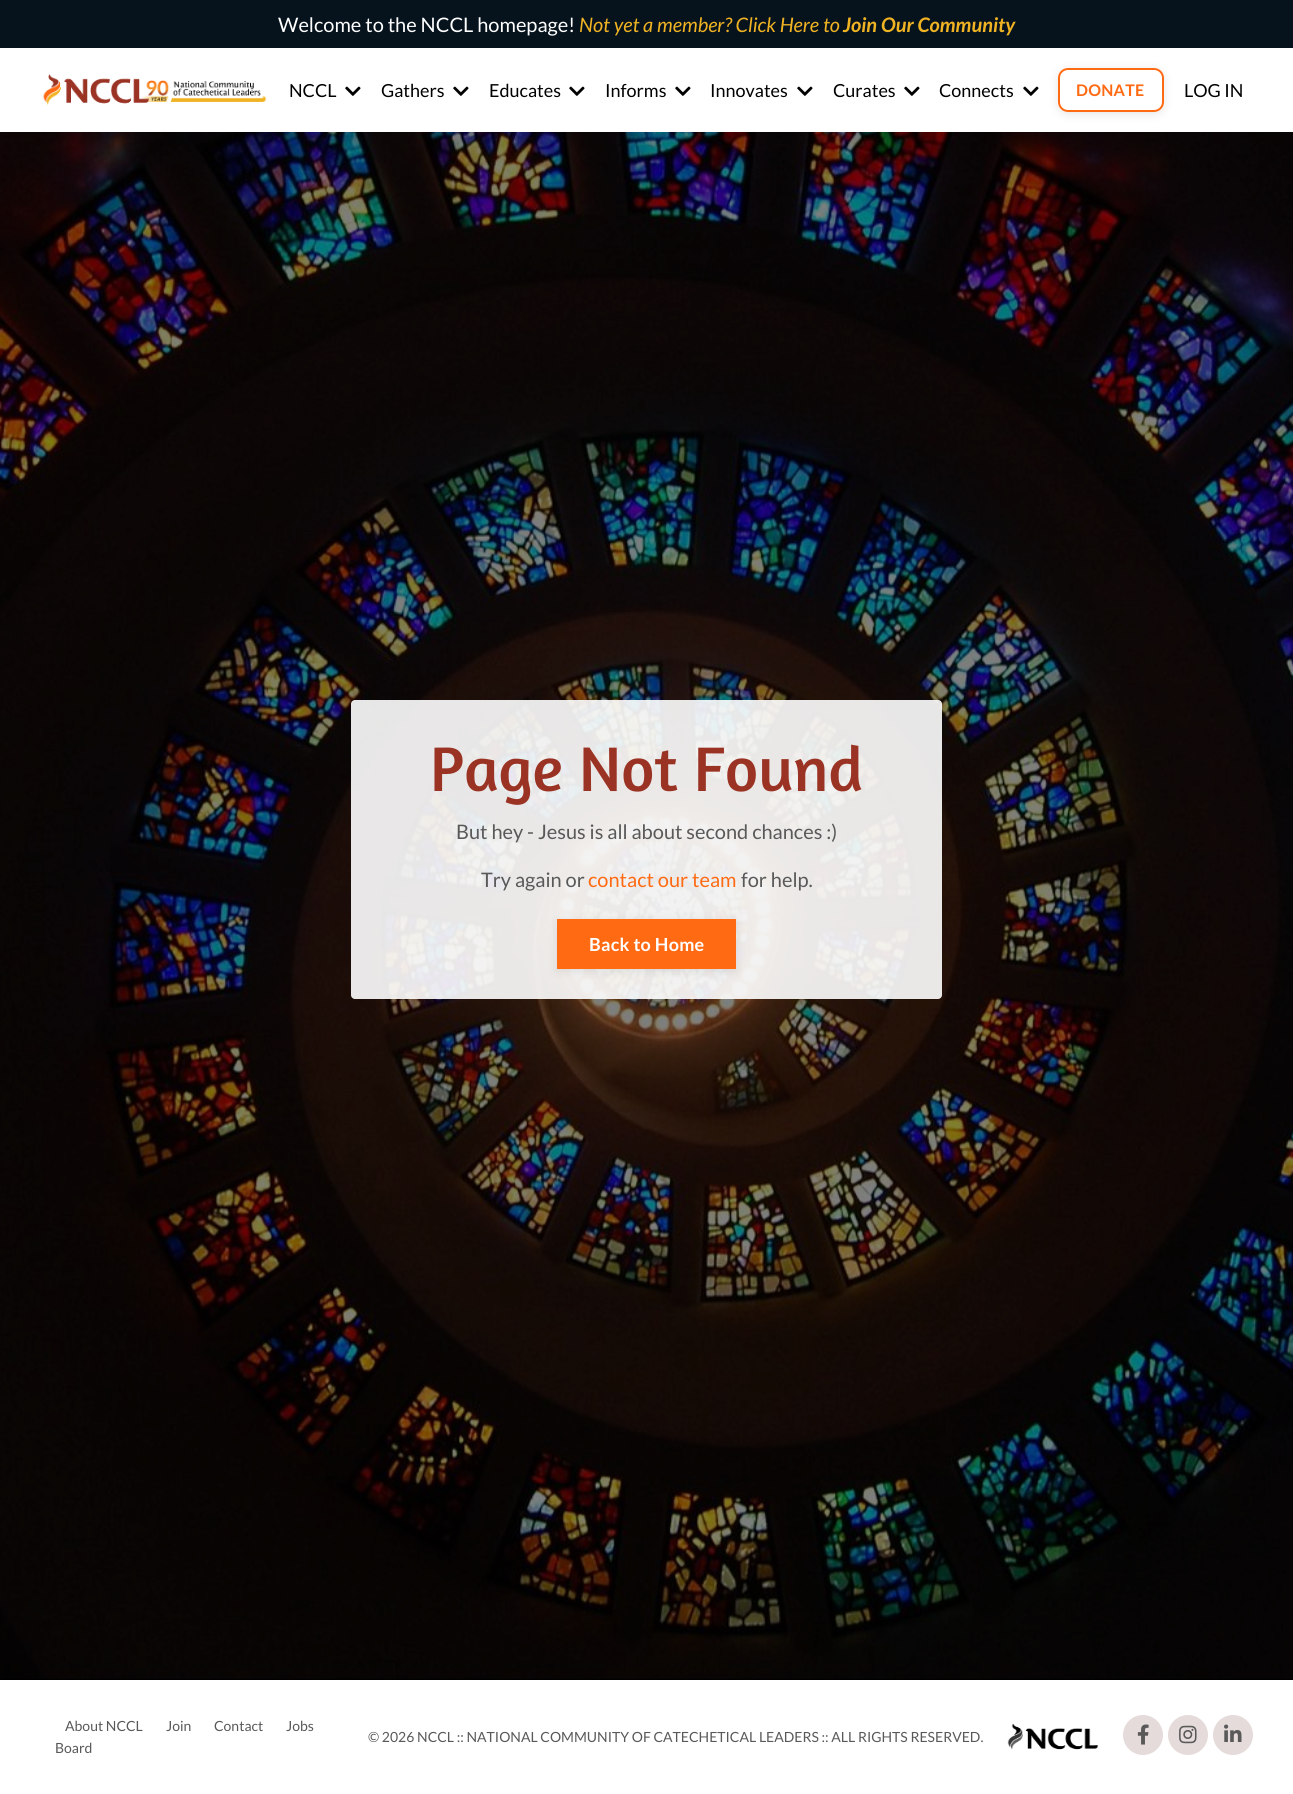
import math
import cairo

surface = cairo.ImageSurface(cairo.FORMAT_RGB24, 1293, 1794)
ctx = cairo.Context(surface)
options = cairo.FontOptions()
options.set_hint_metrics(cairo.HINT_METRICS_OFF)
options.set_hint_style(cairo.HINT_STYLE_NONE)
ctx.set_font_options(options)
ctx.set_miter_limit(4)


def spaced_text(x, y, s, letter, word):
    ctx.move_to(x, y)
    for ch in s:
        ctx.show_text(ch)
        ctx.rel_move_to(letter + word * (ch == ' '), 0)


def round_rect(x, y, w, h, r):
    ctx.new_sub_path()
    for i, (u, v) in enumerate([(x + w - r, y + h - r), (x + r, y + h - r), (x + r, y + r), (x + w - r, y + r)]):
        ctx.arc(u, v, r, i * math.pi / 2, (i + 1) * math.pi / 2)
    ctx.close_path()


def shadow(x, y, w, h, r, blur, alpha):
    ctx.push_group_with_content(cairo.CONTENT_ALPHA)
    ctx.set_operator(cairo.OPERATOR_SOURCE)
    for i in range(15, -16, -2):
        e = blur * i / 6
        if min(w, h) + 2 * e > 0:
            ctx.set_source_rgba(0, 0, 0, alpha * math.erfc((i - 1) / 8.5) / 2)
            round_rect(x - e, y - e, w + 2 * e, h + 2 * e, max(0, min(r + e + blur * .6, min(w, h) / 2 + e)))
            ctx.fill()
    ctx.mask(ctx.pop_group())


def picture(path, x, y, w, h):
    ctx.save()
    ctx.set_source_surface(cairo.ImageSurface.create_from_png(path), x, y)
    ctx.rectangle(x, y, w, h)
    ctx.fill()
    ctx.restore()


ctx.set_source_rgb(1, 1, 1)
ctx.paint()
picture("img3.png", 0, 132, 1293, 1548)
ctx.set_source_rgb(0, 0, 0)
shadow(0, 4, 1293, 132, 0, 10, 0.07)
ctx.set_source_rgb(1, 1, 1)
ctx.rectangle(0, 48, 1293, 84)
ctx.fill()
ctx.set_source_rgb(0.027, 0.071, 0.11)
ctx.rectangle(0, 0, 1293, 48)
ctx.fill()
ctx.select_font_face("Lato")
ctx.set_font_size(20)
ctx.set_source_rgb(1, 1, 1)
ctx.move_to(278, 32)
ctx.show_text("Welcome to the NCCL homepage!")
ctx.select_font_face("Lato", cairo.FONT_SLANT_ITALIC)
ctx.set_source_rgb(0.941, 0.702, 0.137)
ctx.move_to(579, 32)
ctx.show_text("Not yet a member? Click Here to")
ctx.select_font_face("Lato", cairo.FONT_SLANT_ITALIC, cairo.FONT_WEIGHT_BOLD)
ctx.move_to(843, 32)
ctx.show_text("Join Our Community")
picture("img1.png", 43, 74, 224, 31)
ctx.select_font_face("Lato")
ctx.set_font_size(18)
ctx.set_source_rgb(0, 0, 0)
ctx.move_to(289, 97)
ctx.show_text("NCCL")
picture("img2.png", 345, 86, 16, 10)
ctx.move_to(381, 97)
ctx.show_text("Gathers")
picture("img2.png", 453, 86, 16, 10)
ctx.move_to(489, 97)
ctx.show_text("Educates")
picture("img2.png", 569, 86, 16, 10)
ctx.move_to(605, 97)
ctx.show_text("Informs")
picture("img2.png", 675, 86, 16, 10)
ctx.move_to(710, 97)
ctx.show_text("Innovates")
picture("img2.png", 797, 86, 16, 10)
ctx.move_to(833, 97)
ctx.show_text("Curates")
picture("img2.png", 904, 86, 16, 10)
ctx.move_to(939, 97)
ctx.show_text("Connects")
picture("img2.png", 1023, 86, 16, 10)
ctx.save()
ctx.set_fill_rule(cairo.FILL_RULE_EVEN_ODD)
ctx.new_path()
ctx.move_to(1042, 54)
ctx.line_to(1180, 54)
ctx.line_to(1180, 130)
ctx.line_to(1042, 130)
ctx.close_path()
ctx.move_to(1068, 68)
ctx.line_to(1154, 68)
ctx.curve_to(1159.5, 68, 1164, 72.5, 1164, 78)
ctx.line_to(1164, 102)
ctx.curve_to(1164, 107.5, 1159.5, 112, 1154, 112)
ctx.line_to(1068, 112)
ctx.curve_to(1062.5, 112, 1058, 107.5, 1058, 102)
ctx.line_to(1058, 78)
ctx.curve_to(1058, 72.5, 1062.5, 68, 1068, 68)
ctx.close_path()
ctx.clip()
ctx.set_source_rgb(0, 0, 0)
shadow(1058, 70, 106, 44, 10, 5, 0.1)
ctx.restore()
round_rect(1059, 69, 104, 42, 9)
ctx.set_source_rgb(1, 0.416, 0.075)
ctx.stroke()
ctx.select_font_face("Lato", cairo.FONT_SLANT_NORMAL, cairo.FONT_WEIGHT_BOLD)
ctx.set_font_size(16)
spaced_text(1076, 96, "DONATE", 0.25, 0)
ctx.select_font_face("Lato")
ctx.set_font_size(18)
ctx.set_source_rgb(0, 0, 0)
ctx.move_to(1184, 97)
ctx.show_text("LOG IN")
ctx.set_source_rgba(1, 1, 1, 0.9)
round_rect(351, 700, 591, 299, 4)
ctx.fill()
ctx.select_font_face("Amaranth")
ctx.set_font_size(64)
ctx.set_source_rgb(0.604, 0.2, 0.141)
ctx.move_to(430, 791)
ctx.show_text("Page Not Found")
ctx.select_font_face("Lato")
ctx.set_font_size(20)
ctx.set_source_rgb(0.349, 0.349, 0.349)
ctx.move_to(456, 839)
ctx.show_text("But hey - Jesus is all about second chances :)")
ctx.move_to(481, 887)
ctx.show_text("Try again or")
ctx.set_source_rgb(1, 0.416, 0.075)
ctx.move_to(588, 887)
ctx.show_text("contact our team")
ctx.set_source_rgb(0.349, 0.349, 0.349)
ctx.move_to(741, 887)
ctx.show_text("for help.")
ctx.set_source_rgb(0, 0, 0)
shadow(557, 921, 179, 50, 0, 5, 0.1)
ctx.set_source_rgb(1, 0.416, 0.075)
ctx.rectangle(557, 919, 179, 50)
ctx.fill()
ctx.select_font_face("Lato", cairo.FONT_SLANT_NORMAL, cairo.FONT_WEIGHT_BOLD)
ctx.set_font_size(18)
ctx.set_source_rgb(1, 1, 1)
spaced_text(589, 951, "Back to Home", 0.25, 0)
ctx.select_font_face("Lato")
ctx.set_font_size(14)
ctx.set_source_rgb(0.349, 0.349, 0.349)
ctx.move_to(65, 1731)
ctx.show_text("About NCCL")
ctx.move_to(166, 1731)
ctx.show_text("Join")
ctx.move_to(214, 1731)
ctx.show_text("Contact")
ctx.move_to(286, 1731)
ctx.show_text("Jobs")
ctx.move_to(55, 1753)
ctx.show_text("Board")
ctx.move_to(368, 1742)
ctx.show_text("© 2026 NCCL :: NATIONAL COMMUNITY OF CATECHETICAL LEADERS :: ALL RIGHTS RESERVED.")
picture("img4.png", 1007, 1723, 92, 27)
ctx.set_source_rgb(0.898, 0.859, 0.855)
ctx.arc(1143, 1735, 20, 0, 2 * math.pi)
ctx.fill()
picture("img5.png", 1137, 1724, 12, 21)
ctx.arc(1188, 1735, 20, 0, 2 * math.pi)
ctx.fill()
picture("img6.png", 1179, 1725, 18, 19)
ctx.arc(1233, 1735, 20, 0, 2 * math.pi)
ctx.fill()
picture("img7.png", 1224, 1724, 18, 18)
surface.write_to_png("page.png")
